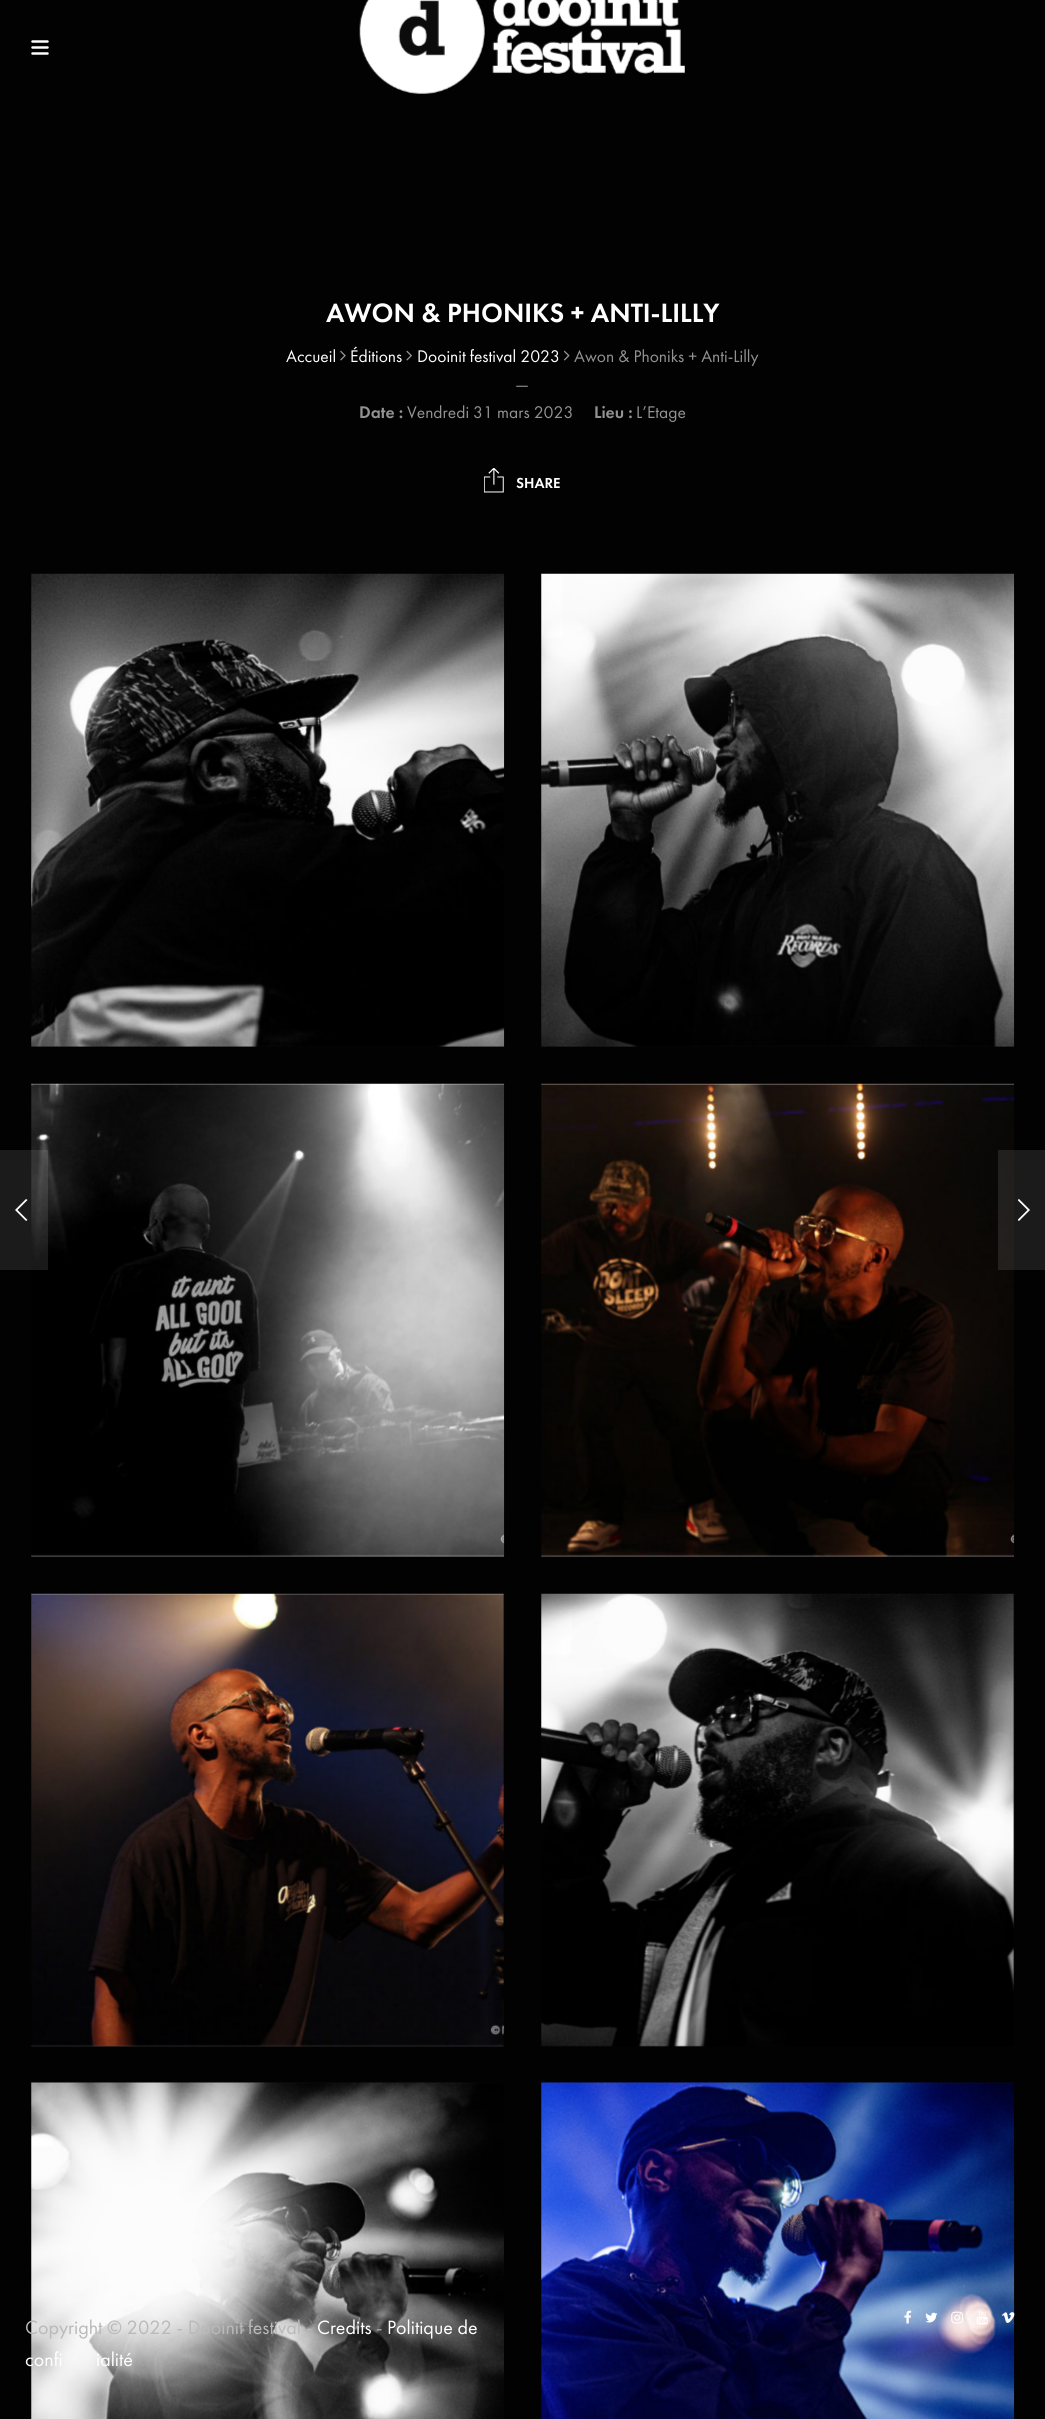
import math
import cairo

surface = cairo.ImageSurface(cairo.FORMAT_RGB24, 1045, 2419)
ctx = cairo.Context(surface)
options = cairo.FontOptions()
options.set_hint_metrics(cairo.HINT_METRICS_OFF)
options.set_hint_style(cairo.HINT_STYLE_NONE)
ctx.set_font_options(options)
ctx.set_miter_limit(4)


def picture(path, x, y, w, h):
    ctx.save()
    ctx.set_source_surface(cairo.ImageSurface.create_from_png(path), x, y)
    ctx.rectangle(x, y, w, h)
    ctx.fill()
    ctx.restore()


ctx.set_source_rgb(0.008, 0.008, 0.008)
ctx.paint()
ctx.new_path()
ctx.move_to(32.5, 41.5)
ctx.line_to(47.5, 41.5)
ctx.move_to(32.5, 47.5)
ctx.line_to(47.5, 47.5)
ctx.move_to(32.5, 53.5)
ctx.line_to(47.5, 53.5)
ctx.set_source_rgb(1, 1, 1)
ctx.set_line_width(2.5)
ctx.set_line_cap(cairo.LINE_CAP_ROUND)
ctx.set_line_join(cairo.LINE_JOIN_ROUND)
ctx.stroke()
picture("img1.png", 359, 0, 326, 94)
ctx.select_font_face("Futura PT Medium")
ctx.set_font_size(27.5)
ctx.move_to(326, 322)
ctx.show_text("AWON & PHONIKS + ANTI-LILLY")
ctx.select_font_face("Futura PT")
ctx.set_font_size(17.5)
ctx.move_to(286, 362)
ctx.show_text("Accueil")
picture("img2.png", 340, 350, 6, 11)
ctx.move_to(350, 362)
ctx.show_text("Éditions")
picture("img3.png", 406, 350, 6, 11)
ctx.move_to(417, 362)
ctx.show_text("Dooinit festival 2023")
picture("img4.png", 563, 350, 7, 11)
ctx.set_source_rgb(0.576, 0.576, 0.576)
ctx.move_to(574, 362)
ctx.show_text("Awon & Phoniks + Anti-Lilly")
ctx.move_to(515, 390)
ctx.show_text("—")
ctx.select_font_face("Futura PT Medium")
ctx.move_to(359, 418)
ctx.show_text("Date :")
ctx.select_font_face("Futura PT")
ctx.move_to(407, 418)
ctx.show_text("Vendredi 31 mars 2023")
ctx.select_font_face("Futura PT Medium")
ctx.move_to(594, 418)
ctx.show_text("Lieu :")
ctx.select_font_face("Futura PT")
ctx.move_to(636, 418)
ctx.show_text("L’Etage")
picture("img5.png", 484, 468, 20, 25)
ctx.select_font_face("Futura PT Medium")
ctx.set_font_size(15)
ctx.set_source_rgb(1, 1, 1)
ctx.move_to(516, 488)
ctx.show_text("SHARE")
picture("img6.png", 31, 573, 474, 474)
picture("img7.png", 541, 573, 474, 474)
picture("img8.png", 31, 1083, 474, 474)
picture("img9.png", 541, 1083, 474, 474)
picture("img10.png", 31, 1593, 474, 454)
picture("img11.png", 541, 1593, 474, 454)
picture("img12.png", 31, 2082, 473, 337)
picture("img13.png", 541, 2082, 474, 337)
ctx.set_source_rgba(1, 1, 1, 0.1)
ctx.rectangle(0, 1150, 48, 120)
ctx.fill()
ctx.set_source_rgb(1, 1, 1)
ctx.set_fill_rule(cairo.FILL_RULE_EVEN_ODD)
ctx.new_path()
ctx.move_to(27.5, 1200)
ctx.line_to(26, 1199)
ctx.line_to(15, 1210)
ctx.line_to(26, 1221)
ctx.line_to(27.5, 1220)
ctx.line_to(17.5, 1210)
ctx.close_path()
ctx.fill()
ctx.set_source_rgba(1, 1, 1, 0.1)
ctx.rectangle(998, 1150, 47, 120)
ctx.fill()
ctx.save()
ctx.set_fill_rule(cairo.FILL_RULE_WINDING)
ctx.rectangle(1018, 1199, 12, 22)
ctx.clip()
ctx.set_source_rgb(1, 1, 1)
ctx.set_fill_rule(cairo.FILL_RULE_EVEN_ODD)
ctx.new_path()
ctx.move_to(1017.5, 1220)
ctx.line_to(1019, 1221)
ctx.line_to(1030, 1210)
ctx.line_to(1019, 1199)
ctx.line_to(1017.5, 1200)
ctx.line_to(1027.5, 1210)
ctx.close_path()
ctx.fill()
ctx.restore()
picture("img14.png", 904, 2310, 8, 14)
picture("img15.png", 925, 2312, 13, 11)
picture("img16.png", 951, 2311, 12, 13)
picture("img17.png", 976, 2310, 12, 15)
picture("img18.png", 1002, 2312, 13, 11)
ctx.select_font_face("Futura PT")
ctx.set_font_size(20)
ctx.set_source_rgb(0.725, 0.725, 0.725)
ctx.move_to(25, 2334)
ctx.show_text("Copyright © 2022 - Dooinit festival -")
ctx.set_source_rgb(1, 1, 1)
ctx.move_to(317, 2334)
ctx.show_text("Credits")
ctx.set_source_rgb(0.635, 0.635, 0.635)
ctx.move_to(376, 2334)
ctx.show_text("-")
ctx.set_source_rgb(1, 1, 1)
ctx.move_to(387, 2334)
ctx.show_text("Politique de")
ctx.move_to(25, 2366)
ctx.show_text("confi")
ctx.move_to(96, 2366)
ctx.show_text("ialité")
surface.write_to_png("page.png")
